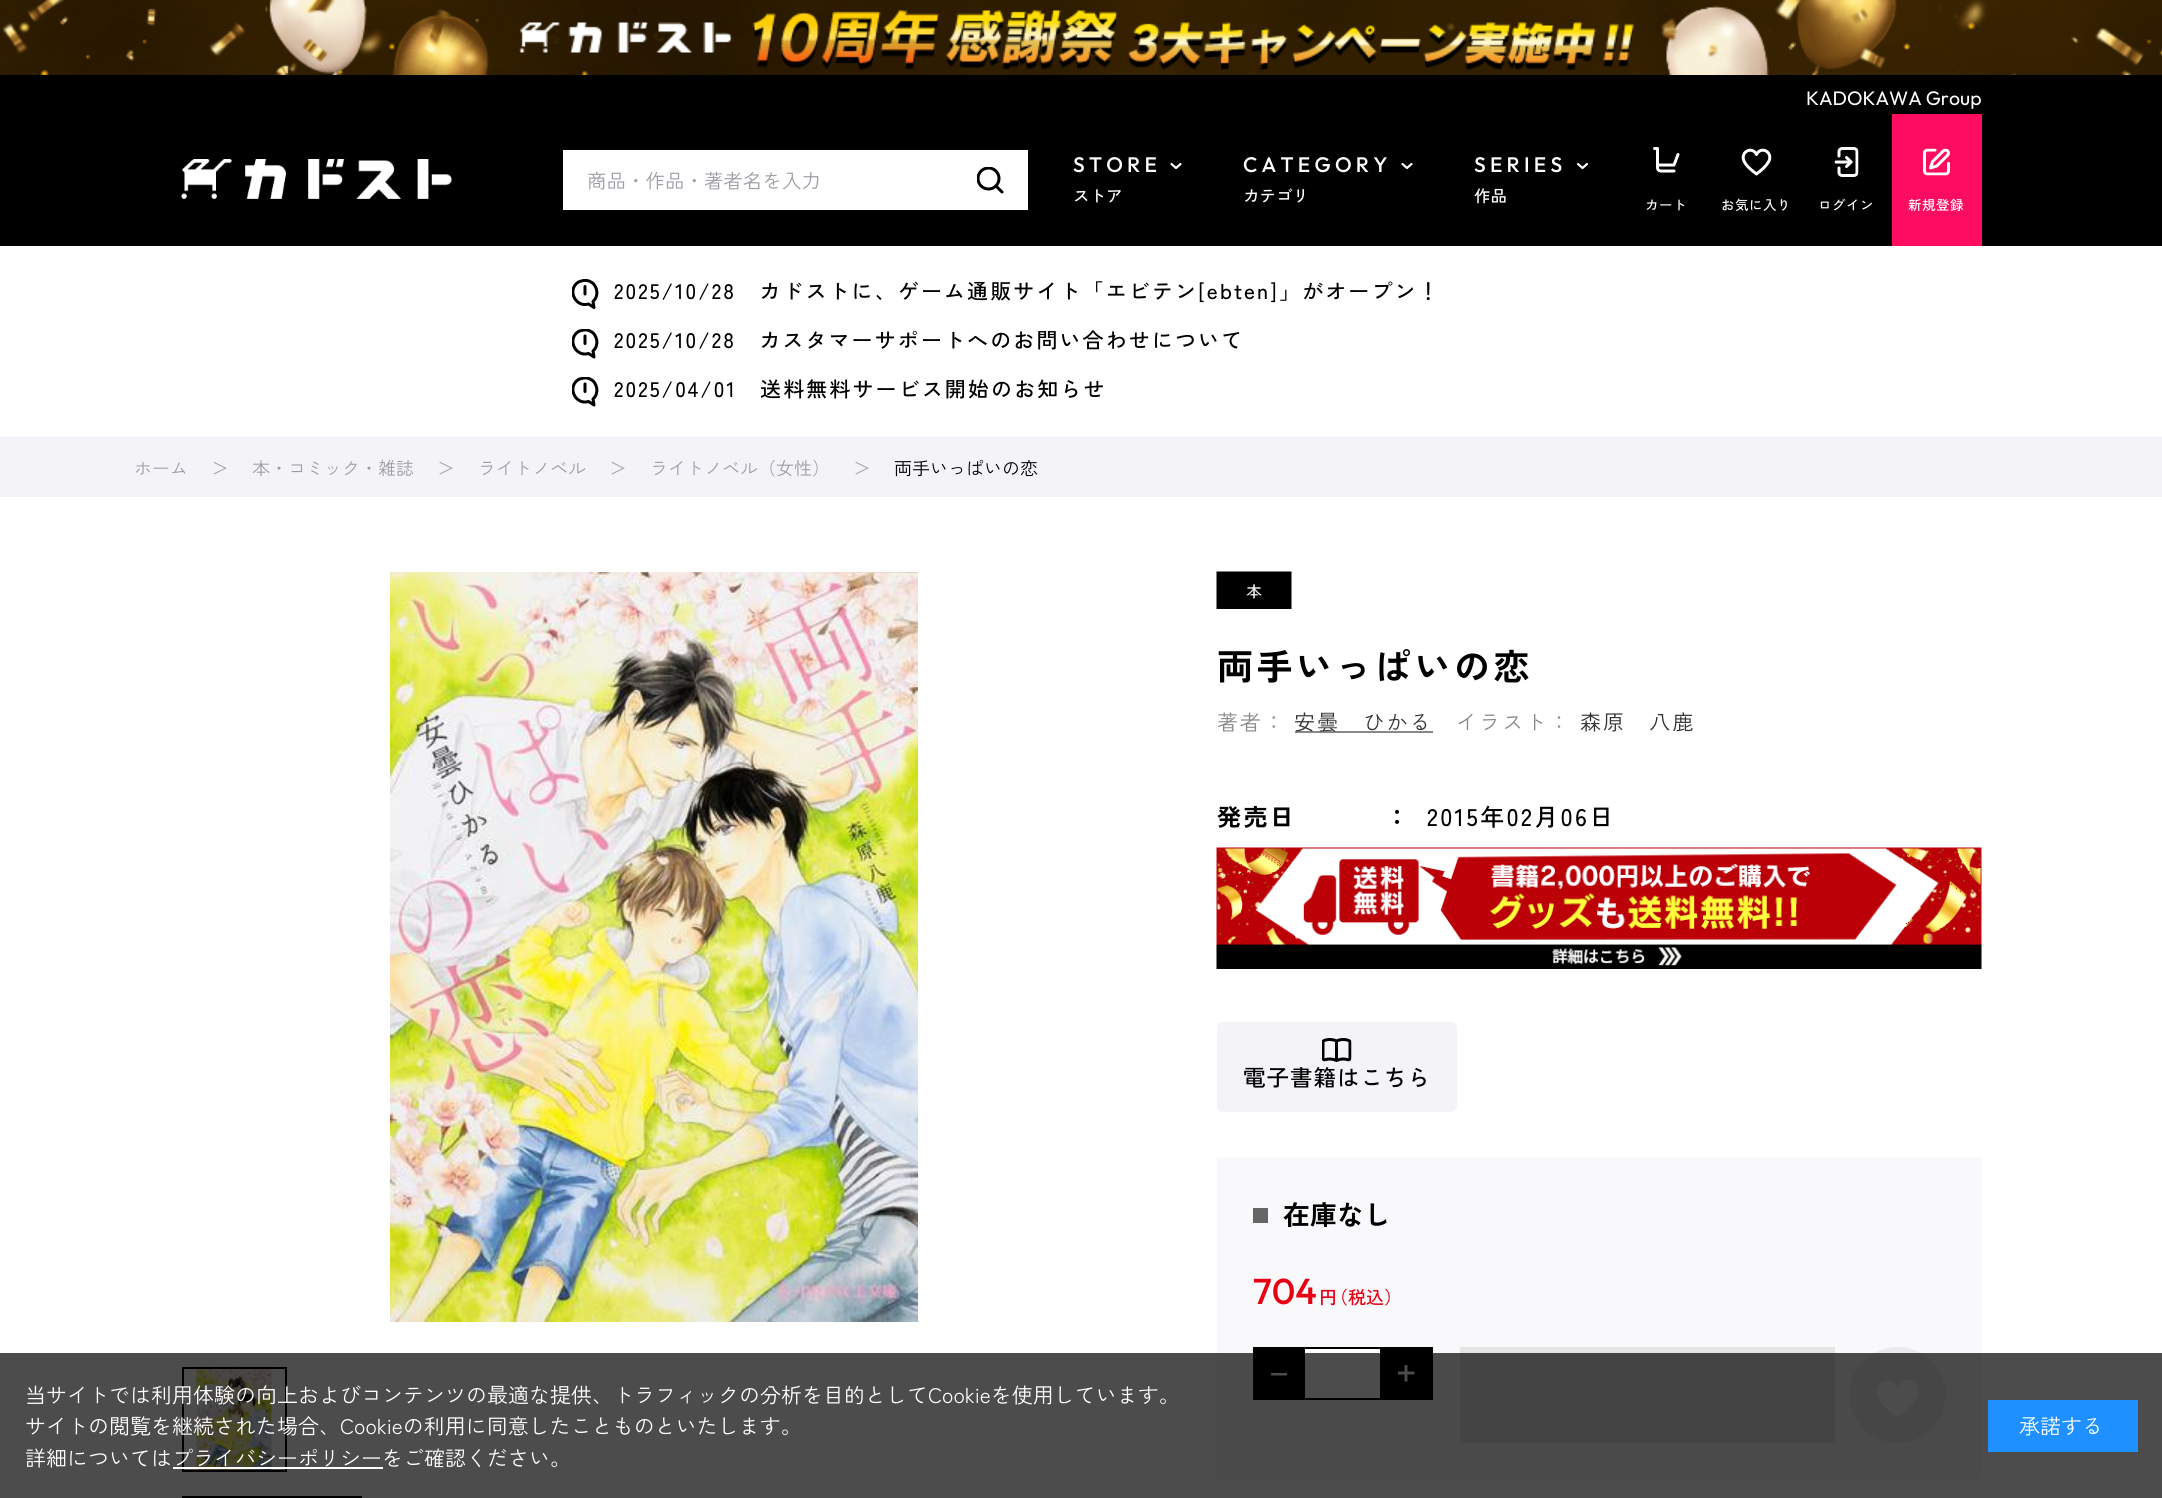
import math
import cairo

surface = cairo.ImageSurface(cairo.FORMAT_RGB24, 2162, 1498)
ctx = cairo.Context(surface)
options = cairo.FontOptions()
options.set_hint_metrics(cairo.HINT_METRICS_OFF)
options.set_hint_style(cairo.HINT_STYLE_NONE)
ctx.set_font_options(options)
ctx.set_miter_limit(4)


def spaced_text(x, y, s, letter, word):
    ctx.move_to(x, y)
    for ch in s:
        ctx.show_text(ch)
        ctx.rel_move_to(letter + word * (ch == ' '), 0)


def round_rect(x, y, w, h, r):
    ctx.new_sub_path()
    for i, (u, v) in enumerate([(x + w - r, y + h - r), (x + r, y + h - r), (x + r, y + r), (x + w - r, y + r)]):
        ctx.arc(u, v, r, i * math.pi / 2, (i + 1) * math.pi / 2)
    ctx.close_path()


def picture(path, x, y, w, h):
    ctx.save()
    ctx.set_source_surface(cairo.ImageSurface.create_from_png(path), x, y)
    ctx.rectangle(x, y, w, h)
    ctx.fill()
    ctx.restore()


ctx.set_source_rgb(1, 1, 1)
ctx.paint()
picture("img1.png", 0, 0, 2162, 75)
picture("img2.png", 265, 0, 1632, 75)
ctx.set_source_rgb(0, 0, 0)
ctx.rectangle(0, 75, 2162, 171)
ctx.fill()
ctx.select_font_face("Outfit")
ctx.set_font_size(19.5)
ctx.set_source_rgb(1, 1, 1)
ctx.move_to(1806, 105)
ctx.show_text("KADOKAWA Group")
picture("img3.png", 181, 159, 271, 40)
ctx.rectangle(563, 150, 465, 60)
ctx.fill()
ctx.select_font_face("Zen Kaku Gothic New")
ctx.set_source_rgb(0.616, 0.616, 0.647)
ctx.move_to(587, 188)
ctx.show_text("商品・作品・著者名を入力")
ctx.save()
ctx.rectangle(977, 167, 27, 27)
ctx.clip()
ctx.arc(988.5, 178.5, 10.5, 0, 2 * math.pi)
ctx.set_source_rgb(0, 0, 0)
ctx.set_line_width(3)
ctx.stroke()
ctx.restore()
ctx.save()
ctx.new_path()
ctx.move_to(976.5, 166.5)
ctx.line_to(1003.5, 166.5)
ctx.line_to(1003.5, 193.5)
ctx.line_to(976.5, 193.5)
ctx.close_path()
ctx.clip()
ctx.new_path()
ctx.move_to(996, 186)
ctx.line_to(1002, 192)
ctx.set_source_rgb(0, 0, 0)
ctx.set_line_width(3)
ctx.set_line_cap(cairo.LINE_CAP_ROUND)
ctx.set_line_join(cairo.LINE_JOIN_ROUND)
ctx.stroke()
ctx.restore()
ctx.select_font_face("Outfit Medium")
ctx.set_font_size(21)
ctx.set_source_rgb(1, 1, 1)
spaced_text(1073, 172, "STORE", 4.25, 0)
ctx.new_path()
ctx.move_to(1171.5, 164)
ctx.line_to(1176, 168)
ctx.line_to(1180.5, 164)
ctx.set_source_rgb(0.996, 0.996, 0.996)
ctx.set_line_width(2.2)
ctx.set_line_cap(cairo.LINE_CAP_ROUND)
ctx.set_line_join(cairo.LINE_JOIN_ROUND)
ctx.stroke()
ctx.select_font_face("Zen Kaku Gothic New Medium")
ctx.set_font_size(16.5)
ctx.set_source_rgb(1, 1, 1)
ctx.move_to(1073, 202)
ctx.show_text("ストア")
ctx.select_font_face("Outfit Medium")
ctx.set_font_size(21)
spaced_text(1243, 172, "CATEGORY", 4.25, 0)
ctx.new_path()
ctx.move_to(1402.5, 164)
ctx.line_to(1407, 168)
ctx.line_to(1411.5, 164)
ctx.set_source_rgb(0.996, 0.996, 0.996)
ctx.stroke()
ctx.select_font_face("Zen Kaku Gothic New Medium")
ctx.set_font_size(16.5)
ctx.set_source_rgb(1, 1, 1)
ctx.move_to(1243, 202)
ctx.show_text("カテゴリ")
ctx.select_font_face("Outfit Medium")
ctx.set_font_size(21)
spaced_text(1474, 172, "SERIES", 4.25, 0)
ctx.new_path()
ctx.move_to(1578, 164)
ctx.line_to(1582.5, 168)
ctx.line_to(1587, 164)
ctx.set_source_rgb(0.996, 0.996, 0.996)
ctx.stroke()
ctx.select_font_face("Zen Kaku Gothic New Medium")
ctx.set_font_size(16.5)
ctx.set_source_rgb(1, 1, 1)
ctx.move_to(1474, 202)
ctx.show_text("作品")
ctx.save()
ctx.new_path()
ctx.move_to(1653, 147)
ctx.line_to(1679.5, 147)
ctx.line_to(1679.5, 177)
ctx.line_to(1653, 177)
ctx.close_path()
ctx.clip()
ctx.new_path()
ctx.move_to(1657.5, 165)
ctx.line_to(1674, 165)
ctx.line_to(1678, 154.5)
ctx.set_line_width(3)
ctx.stroke()
ctx.restore()
ctx.new_path()
ctx.move_to(1654.5, 148.5)
ctx.line_to(1657.5, 148.5)
ctx.line_to(1657.5, 168)
ctx.curve_to(1657.5, 169.5, 1659, 171, 1660.5, 171)
ctx.line_to(1674, 171)
ctx.set_line_width(3)
ctx.stroke()
ctx.set_font_size(13.5)
spaced_text(1645, 210, "カート", 0.5, 0)
ctx.save()
ctx.new_path()
ctx.move_to(1741.5, 148.5)
ctx.line_to(1771.5, 148.5)
ctx.line_to(1771.5, 175.5)
ctx.line_to(1741.5, 175.5)
ctx.close_path()
ctx.clip()
ctx.new_path()
ctx.move_to(1756.5, 154.5)
ctx.curve_to(1761, 145.5, 1773, 152, 1769, 161)
ctx.curve_to(1766, 166.5, 1761, 170.5, 1756.5, 174)
ctx.curve_to(1752, 170.5, 1746.5, 166.5, 1744, 161)
ctx.curve_to(1740, 152, 1752, 145.5, 1756.5, 154.5)
ctx.close_path()
ctx.stroke()
ctx.restore()
spaced_text(1721, 210, "お気に入り", 0.5, 0)
picture("img4.png", 1834, 147, 25, 30)
spaced_text(1818, 210, "ログイン", 0.5, 0)
ctx.set_source_rgb(0.996, 0.047, 0.376)
ctx.rectangle(1892, 114, 90, 132)
ctx.fill()
picture("img5.png", 1923, 148, 27, 28)
ctx.set_source_rgb(1, 1, 1)
spaced_text(1908, 210, "新規登録", 0.5, 0)
ctx.save()
ctx.rectangle(572, 279, 27, 30)
ctx.clip()
ctx.new_path()
ctx.move_to(571.5, 279)
ctx.line_to(598.5, 279)
ctx.line_to(598.5, 309)
ctx.line_to(571.5, 309)
ctx.close_path()
ctx.clip()
ctx.new_path()
ctx.move_to(594, 307.5)
ctx.line_to(588.5, 304)
ctx.curve_to(575.5, 308, 566.5, 289.5, 578.5, 282)
ctx.curve_to(581, 281, 584, 280, 587, 280.5)
ctx.curve_to(590, 281, 593.5, 283, 595, 286)
ctx.curve_to(598, 291, 597.5, 297.5, 593, 301.5)
ctx.close_path()
ctx.move_to(585, 286.5)
ctx.line_to(585, 294)
ctx.set_source_rgb(0, 0, 0)
ctx.stroke()
ctx.restore()
ctx.set_font_size(21)
ctx.set_source_rgb(0, 0, 0)
spaced_text(614, 299, "2025/10/28　カドストに、ゲーム通販サイト「エビテン[ebten]」がオープン！", 2.1, 0)
ctx.save()
ctx.rectangle(572, 329, 27, 30)
ctx.clip()
ctx.new_path()
ctx.move_to(571.5, 328.5)
ctx.line_to(598.5, 328.5)
ctx.line_to(598.5, 358.5)
ctx.line_to(571.5, 358.5)
ctx.close_path()
ctx.clip()
ctx.new_path()
ctx.move_to(594, 357)
ctx.line_to(588.5, 353.5)
ctx.curve_to(575.5, 357.5, 566.5, 339, 578.5, 331.5)
ctx.curve_to(581, 330.5, 584, 329.5, 587, 330)
ctx.curve_to(590, 330.5, 593.5, 332.5, 595, 335.5)
ctx.curve_to(598, 340.5, 597.5, 347, 593, 351)
ctx.close_path()
ctx.move_to(585, 336)
ctx.line_to(585, 343.5)
ctx.stroke()
ctx.restore()
spaced_text(614, 348, "2025/10/28　カスタマーサポートへのお問い合わせについて", 2.1, 0)
ctx.save()
ctx.rectangle(572, 377, 27, 30)
ctx.clip()
ctx.new_path()
ctx.move_to(571.5, 376.5)
ctx.line_to(598.5, 376.5)
ctx.line_to(598.5, 406.5)
ctx.line_to(571.5, 406.5)
ctx.close_path()
ctx.clip()
ctx.new_path()
ctx.move_to(594, 405)
ctx.line_to(588.5, 401.5)
ctx.curve_to(575.5, 405.5, 566.5, 387, 578.5, 379.5)
ctx.curve_to(581, 378.5, 584, 377.5, 587, 378)
ctx.curve_to(590, 378.5, 593.5, 380.5, 595, 383.5)
ctx.curve_to(598, 388.5, 597.5, 395, 593, 399)
ctx.close_path()
ctx.move_to(585, 384)
ctx.line_to(585, 391.5)
ctx.stroke()
ctx.restore()
spaced_text(614, 397, "2025/04/01　送料無料サービス開始のお知らせ", 2.1, 0)
ctx.set_source_rgb(0.957, 0.957, 0.969)
ctx.rectangle(0, 437, 2162, 60)
ctx.fill()
ctx.select_font_face("Zen Kaku Gothic New")
ctx.set_font_size(18)
ctx.set_source_rgb(0.616, 0.616, 0.647)
ctx.move_to(134, 475)
ctx.show_text("ホーム")
ctx.move_to(211, 475)
ctx.show_text("＞")
ctx.move_to(252, 475)
ctx.show_text("本・コミック・雑誌")
ctx.move_to(437, 475)
ctx.show_text("＞")
ctx.move_to(478, 475)
ctx.show_text("ライトノベル")
ctx.move_to(609, 475)
ctx.show_text("＞")
ctx.move_to(650, 475)
ctx.show_text("ライトノベル（女性）")
ctx.move_to(853, 475)
ctx.show_text("＞")
ctx.set_source_rgb(0, 0, 0)
ctx.move_to(894, 475)
ctx.show_text("両手いっぱいの恋")
picture("img6.png", 390, 572, 528, 750)
picture("img7.png", 196, 1366, 76, 104)
ctx.rectangle(183, 1368, 103, 103)
ctx.set_line_width(2)
ctx.set_line_cap(cairo.LINE_CAP_BUTT)
ctx.set_line_join(cairo.LINE_JOIN_MITER)
ctx.stroke()
ctx.rectangle(183, 1497, 178, 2)
ctx.stroke()
picture("img8.png", 1216, 571, 76, 38)
ctx.select_font_face("Zen Kaku Gothic New", cairo.FONT_SLANT_NORMAL, cairo.FONT_WEIGHT_BOLD)
ctx.set_font_size(36)
spaced_text(1217, 680, "両手いっぱいの恋", 3.5, 0)
ctx.select_font_face("Zen Kaku Gothic New")
ctx.set_font_size(21)
ctx.set_source_rgb(0.533, 0.533, 0.533)
spaced_text(1217, 730, "著者：", 2.1, 0)
ctx.rectangle(1295, 731, 138, 2)
ctx.fill()
ctx.set_source_rgb(0.2, 0.2, 0.2)
spaced_text(1294, 730, "安曇　ひかる", 2.1, 0)
ctx.set_source_rgb(0.533, 0.533, 0.533)
spaced_text(1456, 730, "イラスト：", 2.1, 0)
ctx.set_source_rgb(0.2, 0.2, 0.2)
spaced_text(1580, 730, "森原　八鹿", 2.1, 0)
ctx.select_font_face("Zen Kaku Gothic New", cairo.FONT_SLANT_NORMAL, cairo.FONT_WEIGHT_BOLD)
ctx.set_font_size(24)
ctx.set_source_rgb(0, 0, 0)
spaced_text(1217, 826, "発売日", 2.4, 0)
spaced_text(1385, 826, "：", 2.4, 0)
ctx.select_font_face("Zen Kaku Gothic New Medium")
spaced_text(1427, 826, "2015年02月06日", 2.4, 0)
picture("img9.png", 1216, 847, 766, 122)
ctx.set_source_rgb(0.957, 0.957, 0.969)
round_rect(1217, 1022, 240, 90, 6)
ctx.fill()
picture("img10.png", 1322, 1038, 30, 24)
ctx.set_font_size(22.5)
ctx.set_source_rgb(0, 0, 0)
spaced_text(1243, 1086, "電子書籍はこちら", 1, 0)
ctx.set_source_rgb(0.976, 0.976, 0.984)
ctx.rectangle(1217, 1157, 765, 322)
ctx.fill()
ctx.set_source_rgb(0.4, 0.4, 0.4)
ctx.rectangle(1253, 1208, 15, 15)
ctx.fill()
ctx.select_font_face("Zen Kaku Gothic New", cairo.FONT_SLANT_NORMAL, cairo.FONT_WEIGHT_BOLD)
ctx.set_font_size(27)
ctx.set_source_rgb(0, 0, 0)
ctx.move_to(1283, 1225)
ctx.show_text("在庫なし")
ctx.select_font_face("Outfit Medium")
ctx.set_font_size(36)
ctx.set_source_rgb(0.902, 0.004, 0.075)
ctx.move_to(1253, 1304)
ctx.show_text("704")
ctx.select_font_face("Zen Kaku Gothic New Medium")
ctx.set_font_size(18)
ctx.move_to(1319, 1304)
ctx.show_text("円")
ctx.move_to(1330, 1304)
ctx.show_text("（税込）")
ctx.set_source_rgb(0, 0, 0)
ctx.rectangle(1253, 1347, 52, 53)
ctx.fill()
ctx.save()
ctx.rectangle(1271, 1373, 16, 3)
ctx.clip()
ctx.new_path()
ctx.move_to(1287, 1374)
ctx.line_to(1270.5, 1374)
ctx.set_source_rgb(1, 1, 1)
ctx.set_line_width(2.9)
ctx.set_line_join(cairo.LINE_JOIN_ROUND)
ctx.stroke()
ctx.restore()
ctx.set_source_rgb(1, 1, 1)
ctx.rectangle(1305, 1349, 75, 49)
ctx.fill()
ctx.set_source_rgb(0, 0, 0)
ctx.rectangle(1305, 1347, 75, 2)
ctx.fill()
ctx.rectangle(1305, 1398, 75, 2)
ctx.fill()
ctx.rectangle(1380, 1347, 53, 53)
ctx.fill()
ctx.new_path()
ctx.move_to(1406, 1365)
ctx.line_to(1406, 1381.5)
ctx.move_to(1414.5, 1373)
ctx.line_to(1398, 1373)
ctx.set_source_rgb(1, 1, 1)
ctx.set_line_width(2.9)
ctx.set_line_join(cairo.LINE_JOIN_ROUND)
ctx.stroke()
ctx.set_source_rgb(0.898, 0.898, 0.898)
ctx.rectangle(1460, 1347, 375, 96)
ctx.fill()
ctx.save()
ctx.rectangle(1850, 1347, 96, 96)
ctx.clip()
ctx.set_source_rgb(0.918, 0.918, 0.929)
ctx.arc(1897.5, 1395, 48, 0, 2 * math.pi)
ctx.fill()
ctx.restore()
ctx.set_source_rgb(1, 1, 1)
ctx.new_path()
ctx.move_to(1898, 1387)
ctx.curve_to(1906, 1373, 1924, 1383, 1917, 1397)
ctx.curve_to(1913, 1406, 1905, 1412, 1897, 1417)
ctx.curve_to(1890, 1412, 1882, 1406, 1878, 1397)
ctx.curve_to(1871, 1384, 1889, 1373, 1898, 1387)
ctx.close_path()
ctx.fill()
ctx.set_source_rgba(0, 0, 0, 0.7)
ctx.rectangle(0, 1353, 2162, 145)
ctx.fill()
ctx.select_font_face("Zen Kaku Gothic New")
ctx.set_font_size(21)
ctx.set_source_rgb(1, 1, 1)
ctx.move_to(25, 1403)
ctx.show_text("当サイトでは利用体験の向上およびコンテンツの最適な提供、トラフィックの分析を目的としてCookieを使用しています。")
ctx.move_to(25, 1434)
ctx.show_text("サイトの閲覧を継続された場合、Cookieの利用に同意したことものといたします。")
ctx.move_to(25, 1466)
ctx.show_text("詳細についてはプライバシーポリシーをご確認ください。")
ctx.rectangle(173, 1467, 210, 2)
ctx.fill()
ctx.set_source_rgb(0.118, 0.565, 1)
ctx.rectangle(1988, 1400, 150, 52)
ctx.fill()
ctx.set_source_rgb(1, 1, 1)
ctx.move_to(2019, 1434)
ctx.show_text("承諾する")
surface.write_to_png("page.png")
